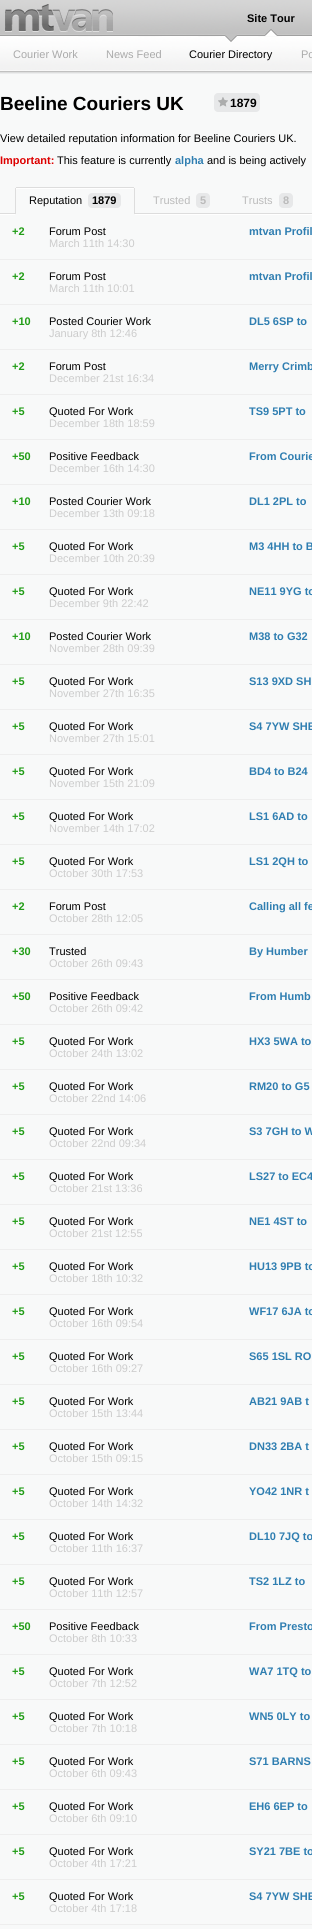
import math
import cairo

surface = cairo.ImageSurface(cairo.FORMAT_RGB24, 312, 1929)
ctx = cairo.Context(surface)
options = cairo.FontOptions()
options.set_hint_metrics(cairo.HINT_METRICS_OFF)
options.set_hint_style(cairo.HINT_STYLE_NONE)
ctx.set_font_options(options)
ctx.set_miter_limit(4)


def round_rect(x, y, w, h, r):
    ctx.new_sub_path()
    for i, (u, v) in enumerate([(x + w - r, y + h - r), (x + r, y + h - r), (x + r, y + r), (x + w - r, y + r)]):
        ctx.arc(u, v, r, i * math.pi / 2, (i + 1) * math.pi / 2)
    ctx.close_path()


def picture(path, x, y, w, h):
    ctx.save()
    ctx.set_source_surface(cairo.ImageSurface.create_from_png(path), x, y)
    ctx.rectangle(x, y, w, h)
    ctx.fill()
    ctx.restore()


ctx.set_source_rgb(0.969, 0.973, 0.976)
ctx.paint()
picture("img1.png", 0, 0, 312, 74)
picture("img2.png", 5, 4, 108, 28)
picture("img3.png", 265, 29, 12, 7)
ctx.select_font_face("Liberation Sans", cairo.FONT_SLANT_NORMAL, cairo.FONT_WEIGHT_BOLD)
ctx.set_font_size(11)
ctx.set_source_rgb(0, 0, 0)
ctx.move_to(247, 22)
ctx.show_text("Site Tour")
ctx.select_font_face("Liberation Sans")
ctx.set_source_rgb(0.667, 0.667, 0.667)
ctx.move_to(13, 58)
ctx.show_text("Courier Work")
ctx.move_to(106, 58)
ctx.show_text("News Feed")
picture("img4.png", 225, 34, 12, 8)
ctx.set_source_rgb(0, 0, 0)
ctx.move_to(189, 58)
ctx.show_text("Courier Directory")
ctx.set_source_rgb(0.667, 0.667, 0.667)
ctx.move_to(301, 58)
ctx.show_text("Po")
ctx.select_font_face("Liberation Sans", cairo.FONT_SLANT_NORMAL, cairo.FONT_WEIGHT_BOLD)
ctx.set_font_size(19)
ctx.set_source_rgb(0, 0, 0)
ctx.move_to(0, 110)
ctx.show_text("Beeline Couriers UK")
ctx.set_source_rgb(0.906, 0.91, 0.914)
round_rect(214, 93, 46, 19, 4)
ctx.fill()
picture("img5.png", 218, 97, 10, 10)
ctx.set_font_size(12)
ctx.set_source_rgb(0, 0, 0)
ctx.move_to(230, 107)
ctx.show_text("1879")
ctx.select_font_face("Liberation Sans")
ctx.set_font_size(11)
ctx.move_to(0, 142)
ctx.show_text("View detailed reputation information for Beeline Couriers UK.")
ctx.select_font_face("Liberation Sans", cairo.FONT_SLANT_NORMAL, cairo.FONT_WEIGHT_BOLD)
ctx.set_source_rgb(0.867, 0, 0)
ctx.move_to(0, 164)
ctx.show_text("Important:")
ctx.select_font_face("Liberation Sans")
ctx.set_source_rgb(0, 0, 0)
ctx.move_to(57, 164)
ctx.show_text("This feature is currently")
ctx.select_font_face("Liberation Sans", cairo.FONT_SLANT_NORMAL, cairo.FONT_WEIGHT_BOLD)
ctx.set_source_rgb(0.184, 0.494, 0.694)
ctx.move_to(175, 164)
ctx.show_text("alpha")
ctx.select_font_face("Liberation Sans")
ctx.set_source_rgb(0, 0, 0)
ctx.move_to(207, 164)
ctx.show_text("and is being actively")
ctx.set_source_rgb(1, 1, 1)
ctx.rectangle(0, 214, 312, 1)
ctx.fill()
ctx.set_source_rgb(0.867, 0.867, 0.867)
ctx.rectangle(0, 213, 312, 1)
ctx.fill()
ctx.set_source_rgb(0.969, 0.973, 0.976)
ctx.rectangle(15, 214, 120, 1)
ctx.fill()
ctx.new_path()
ctx.move_to(17, 187)
ctx.line_to(133, 187)
ctx.curve_to(134, 187, 135, 188, 135, 189)
ctx.line_to(135, 214)
ctx.line_to(15, 214)
ctx.line_to(15, 189)
ctx.curve_to(15, 188, 16, 187, 17, 187)
ctx.close_path()
ctx.fill()
ctx.set_source_rgb(1, 1, 1)
ctx.new_path()
ctx.move_to(17, 189)
ctx.line_to(134, 189)
ctx.line_to(134, 190)
ctx.curve_to(134, 189, 134, 188, 133, 188)
ctx.line_to(16, 188)
ctx.line_to(16, 190)
ctx.close_path()
ctx.fill()
ctx.set_source_rgb(0.867, 0.867, 0.867)
ctx.rectangle(16, 187, 118, 1)
ctx.fill()
ctx.rectangle(134, 188, 1, 26)
ctx.fill()
ctx.rectangle(15, 188, 1, 26)
ctx.fill()
ctx.set_source_rgb(0, 0, 0)
ctx.move_to(29, 204)
ctx.show_text("Reputation")
ctx.set_source_rgb(0.906, 0.91, 0.914)
round_rect(88, 193, 33, 15, 4)
ctx.fill()
ctx.select_font_face("Liberation Sans", cairo.FONT_SLANT_NORMAL, cairo.FONT_WEIGHT_BOLD)
ctx.set_source_rgb(0, 0, 0)
ctx.move_to(92, 204)
ctx.show_text("1879")
ctx.select_font_face("Liberation Sans")
ctx.set_source_rgb(0.733, 0.733, 0.733)
ctx.move_to(153, 204)
ctx.show_text("Trusted")
ctx.set_source_rgb(0.906, 0.91, 0.914)
round_rect(196, 193, 14, 15, 4)
ctx.fill()
ctx.select_font_face("Liberation Sans", cairo.FONT_SLANT_NORMAL, cairo.FONT_WEIGHT_BOLD)
ctx.set_source_rgb(0.733, 0.733, 0.733)
ctx.move_to(200, 204)
ctx.show_text("5")
ctx.select_font_face("Liberation Sans")
ctx.move_to(242, 204)
ctx.show_text("Trusts")
ctx.set_source_rgb(0.906, 0.91, 0.914)
round_rect(279, 193, 14, 15, 4)
ctx.fill()
ctx.select_font_face("Liberation Sans", cairo.FONT_SLANT_NORMAL, cairo.FONT_WEIGHT_BOLD)
ctx.set_source_rgb(0.733, 0.733, 0.733)
ctx.move_to(283, 204)
ctx.show_text("8")
ctx.set_source_rgb(0.133, 0.616, 0.09)
ctx.move_to(12, 235)
ctx.show_text("+2")
ctx.select_font_face("Liberation Sans")
ctx.set_source_rgb(0, 0, 0)
ctx.move_to(49, 235)
ctx.show_text("Forum Post")
ctx.set_source_rgb(0.8, 0.8, 0.8)
ctx.move_to(49, 247)
ctx.show_text("March 11th 14:30")
ctx.select_font_face("Liberation Sans", cairo.FONT_SLANT_NORMAL, cairo.FONT_WEIGHT_BOLD)
ctx.set_source_rgb(0.184, 0.494, 0.694)
ctx.move_to(249, 235)
ctx.show_text("mtvan Profil")
ctx.set_source_rgb(0.933, 0.933, 0.933)
ctx.rectangle(0, 259, 312, 1)
ctx.fill()
ctx.set_source_rgb(0.133, 0.616, 0.09)
ctx.move_to(12, 280)
ctx.show_text("+2")
ctx.select_font_face("Liberation Sans")
ctx.set_source_rgb(0, 0, 0)
ctx.move_to(49, 280)
ctx.show_text("Forum Post")
ctx.set_source_rgb(0.8, 0.8, 0.8)
ctx.move_to(49, 292)
ctx.show_text("March 11th 10:01")
ctx.select_font_face("Liberation Sans", cairo.FONT_SLANT_NORMAL, cairo.FONT_WEIGHT_BOLD)
ctx.set_source_rgb(0.184, 0.494, 0.694)
ctx.move_to(249, 280)
ctx.show_text("mtvan Profil")
ctx.set_source_rgb(0.933, 0.933, 0.933)
ctx.rectangle(0, 304, 312, 1)
ctx.fill()
ctx.set_source_rgb(0.133, 0.616, 0.09)
ctx.move_to(12, 325)
ctx.show_text("+10")
ctx.select_font_face("Liberation Sans")
ctx.set_source_rgb(0, 0, 0)
ctx.move_to(49, 325)
ctx.show_text("Posted Courier Work")
ctx.set_source_rgb(0.8, 0.8, 0.8)
ctx.move_to(49, 337)
ctx.show_text("January 8th 12:46")
ctx.select_font_face("Liberation Sans", cairo.FONT_SLANT_NORMAL, cairo.FONT_WEIGHT_BOLD)
ctx.set_source_rgb(0.184, 0.494, 0.694)
ctx.move_to(249, 325)
ctx.show_text("DL5 6SP to")
ctx.set_source_rgb(0.933, 0.933, 0.933)
ctx.rectangle(0, 349, 312, 1)
ctx.fill()
ctx.set_source_rgb(0.133, 0.616, 0.09)
ctx.move_to(12, 370)
ctx.show_text("+2")
ctx.select_font_face("Liberation Sans")
ctx.set_source_rgb(0, 0, 0)
ctx.move_to(49, 370)
ctx.show_text("Forum Post")
ctx.set_source_rgb(0.8, 0.8, 0.8)
ctx.move_to(49, 382)
ctx.show_text("December 21st 16:34")
ctx.select_font_face("Liberation Sans", cairo.FONT_SLANT_NORMAL, cairo.FONT_WEIGHT_BOLD)
ctx.set_source_rgb(0.184, 0.494, 0.694)
ctx.move_to(249, 370)
ctx.show_text("Merry Crimb")
ctx.set_source_rgb(0.933, 0.933, 0.933)
ctx.rectangle(0, 394, 312, 1)
ctx.fill()
ctx.set_source_rgb(0.133, 0.616, 0.09)
ctx.move_to(12, 415)
ctx.show_text("+5")
ctx.select_font_face("Liberation Sans")
ctx.set_source_rgb(0, 0, 0)
ctx.move_to(49, 415)
ctx.show_text("Quoted For Work")
ctx.set_source_rgb(0.8, 0.8, 0.8)
ctx.move_to(49, 427)
ctx.show_text("December 18th 18:59")
ctx.select_font_face("Liberation Sans", cairo.FONT_SLANT_NORMAL, cairo.FONT_WEIGHT_BOLD)
ctx.set_source_rgb(0.184, 0.494, 0.694)
ctx.move_to(249, 415)
ctx.show_text("TS9 5PT to")
ctx.set_source_rgb(0.933, 0.933, 0.933)
ctx.rectangle(0, 439, 312, 1)
ctx.fill()
ctx.set_source_rgb(0.133, 0.616, 0.09)
ctx.move_to(12, 460)
ctx.show_text("+50")
ctx.select_font_face("Liberation Sans")
ctx.set_source_rgb(0, 0, 0)
ctx.move_to(49, 460)
ctx.show_text("Positive Feedback")
ctx.set_source_rgb(0.8, 0.8, 0.8)
ctx.move_to(49, 472)
ctx.show_text("December 16th 14:30")
ctx.select_font_face("Liberation Sans", cairo.FONT_SLANT_NORMAL, cairo.FONT_WEIGHT_BOLD)
ctx.set_source_rgb(0.184, 0.494, 0.694)
ctx.move_to(249, 460)
ctx.show_text("From Courie")
ctx.set_source_rgb(0.933, 0.933, 0.933)
ctx.rectangle(0, 484, 312, 1)
ctx.fill()
ctx.set_source_rgb(0.133, 0.616, 0.09)
ctx.move_to(12, 505)
ctx.show_text("+10")
ctx.select_font_face("Liberation Sans")
ctx.set_source_rgb(0, 0, 0)
ctx.move_to(49, 505)
ctx.show_text("Posted Courier Work")
ctx.set_source_rgb(0.8, 0.8, 0.8)
ctx.move_to(49, 517)
ctx.show_text("December 13th 09:18")
ctx.select_font_face("Liberation Sans", cairo.FONT_SLANT_NORMAL, cairo.FONT_WEIGHT_BOLD)
ctx.set_source_rgb(0.184, 0.494, 0.694)
ctx.move_to(249, 505)
ctx.show_text("DL1 2PL to")
ctx.set_source_rgb(0.933, 0.933, 0.933)
ctx.rectangle(0, 529, 312, 1)
ctx.fill()
ctx.set_source_rgb(0.133, 0.616, 0.09)
ctx.move_to(12, 550)
ctx.show_text("+5")
ctx.select_font_face("Liberation Sans")
ctx.set_source_rgb(0, 0, 0)
ctx.move_to(49, 550)
ctx.show_text("Quoted For Work")
ctx.set_source_rgb(0.8, 0.8, 0.8)
ctx.move_to(49, 562)
ctx.show_text("December 10th 20:39")
ctx.select_font_face("Liberation Sans", cairo.FONT_SLANT_NORMAL, cairo.FONT_WEIGHT_BOLD)
ctx.set_source_rgb(0.184, 0.494, 0.694)
ctx.move_to(249, 550)
ctx.show_text("M3 4HH to B")
ctx.set_source_rgb(0.933, 0.933, 0.933)
ctx.rectangle(0, 574, 312, 1)
ctx.fill()
ctx.set_source_rgb(0.133, 0.616, 0.09)
ctx.move_to(12, 595)
ctx.show_text("+5")
ctx.select_font_face("Liberation Sans")
ctx.set_source_rgb(0, 0, 0)
ctx.move_to(49, 595)
ctx.show_text("Quoted For Work")
ctx.set_source_rgb(0.8, 0.8, 0.8)
ctx.move_to(49, 607)
ctx.show_text("December 9th 22:42")
ctx.select_font_face("Liberation Sans", cairo.FONT_SLANT_NORMAL, cairo.FONT_WEIGHT_BOLD)
ctx.set_source_rgb(0.184, 0.494, 0.694)
ctx.move_to(249, 595)
ctx.show_text("NE11 9YG to")
ctx.set_source_rgb(0.933, 0.933, 0.933)
ctx.rectangle(0, 619, 312, 1)
ctx.fill()
ctx.set_source_rgb(0.133, 0.616, 0.09)
ctx.move_to(12, 640)
ctx.show_text("+10")
ctx.select_font_face("Liberation Sans")
ctx.set_source_rgb(0, 0, 0)
ctx.move_to(49, 640)
ctx.show_text("Posted Courier Work")
ctx.set_source_rgb(0.8, 0.8, 0.8)
ctx.move_to(49, 652)
ctx.show_text("November 28th 09:39")
ctx.select_font_face("Liberation Sans", cairo.FONT_SLANT_NORMAL, cairo.FONT_WEIGHT_BOLD)
ctx.set_source_rgb(0.184, 0.494, 0.694)
ctx.move_to(249, 640)
ctx.show_text("M38 to G32")
ctx.set_source_rgb(0.933, 0.933, 0.933)
ctx.rectangle(0, 664, 312, 1)
ctx.fill()
ctx.set_source_rgb(0.133, 0.616, 0.09)
ctx.move_to(12, 685)
ctx.show_text("+5")
ctx.select_font_face("Liberation Sans")
ctx.set_source_rgb(0, 0, 0)
ctx.move_to(49, 685)
ctx.show_text("Quoted For Work")
ctx.set_source_rgb(0.8, 0.8, 0.8)
ctx.move_to(49, 697)
ctx.show_text("November 27th 16:35")
ctx.select_font_face("Liberation Sans", cairo.FONT_SLANT_NORMAL, cairo.FONT_WEIGHT_BOLD)
ctx.set_source_rgb(0.184, 0.494, 0.694)
ctx.move_to(249, 685)
ctx.show_text("S13 9XD SH")
ctx.set_source_rgb(0.933, 0.933, 0.933)
ctx.rectangle(0, 709, 312, 1)
ctx.fill()
ctx.set_source_rgb(0.133, 0.616, 0.09)
ctx.move_to(12, 730)
ctx.show_text("+5")
ctx.select_font_face("Liberation Sans")
ctx.set_source_rgb(0, 0, 0)
ctx.move_to(49, 730)
ctx.show_text("Quoted For Work")
ctx.set_source_rgb(0.8, 0.8, 0.8)
ctx.move_to(49, 742)
ctx.show_text("November 27th 15:01")
ctx.select_font_face("Liberation Sans", cairo.FONT_SLANT_NORMAL, cairo.FONT_WEIGHT_BOLD)
ctx.set_source_rgb(0.184, 0.494, 0.694)
ctx.move_to(249, 730)
ctx.show_text("S4 7YW SHE")
ctx.set_source_rgb(0.933, 0.933, 0.933)
ctx.rectangle(0, 754, 312, 1)
ctx.fill()
ctx.set_source_rgb(0.133, 0.616, 0.09)
ctx.move_to(12, 775)
ctx.show_text("+5")
ctx.select_font_face("Liberation Sans")
ctx.set_source_rgb(0, 0, 0)
ctx.move_to(49, 775)
ctx.show_text("Quoted For Work")
ctx.set_source_rgb(0.8, 0.8, 0.8)
ctx.move_to(49, 787)
ctx.show_text("November 15th 21:09")
ctx.select_font_face("Liberation Sans", cairo.FONT_SLANT_NORMAL, cairo.FONT_WEIGHT_BOLD)
ctx.set_source_rgb(0.184, 0.494, 0.694)
ctx.move_to(249, 775)
ctx.show_text("BD4 to B24")
ctx.set_source_rgb(0.933, 0.933, 0.933)
ctx.rectangle(0, 799, 312, 1)
ctx.fill()
ctx.set_source_rgb(0.133, 0.616, 0.09)
ctx.move_to(12, 820)
ctx.show_text("+5")
ctx.select_font_face("Liberation Sans")
ctx.set_source_rgb(0, 0, 0)
ctx.move_to(49, 820)
ctx.show_text("Quoted For Work")
ctx.set_source_rgb(0.8, 0.8, 0.8)
ctx.move_to(49, 832)
ctx.show_text("November 14th 17:02")
ctx.select_font_face("Liberation Sans", cairo.FONT_SLANT_NORMAL, cairo.FONT_WEIGHT_BOLD)
ctx.set_source_rgb(0.184, 0.494, 0.694)
ctx.move_to(249, 820)
ctx.show_text("LS1 6AD to")
ctx.set_source_rgb(0.933, 0.933, 0.933)
ctx.rectangle(0, 844, 312, 1)
ctx.fill()
ctx.set_source_rgb(0.133, 0.616, 0.09)
ctx.move_to(12, 865)
ctx.show_text("+5")
ctx.select_font_face("Liberation Sans")
ctx.set_source_rgb(0, 0, 0)
ctx.move_to(49, 865)
ctx.show_text("Quoted For Work")
ctx.set_source_rgb(0.8, 0.8, 0.8)
ctx.move_to(49, 877)
ctx.show_text("October 30th 17:53")
ctx.select_font_face("Liberation Sans", cairo.FONT_SLANT_NORMAL, cairo.FONT_WEIGHT_BOLD)
ctx.set_source_rgb(0.184, 0.494, 0.694)
ctx.move_to(249, 865)
ctx.show_text("LS1 2QH to")
ctx.set_source_rgb(0.933, 0.933, 0.933)
ctx.rectangle(0, 889, 312, 1)
ctx.fill()
ctx.set_source_rgb(0.133, 0.616, 0.09)
ctx.move_to(12, 910)
ctx.show_text("+2")
ctx.select_font_face("Liberation Sans")
ctx.set_source_rgb(0, 0, 0)
ctx.move_to(49, 910)
ctx.show_text("Forum Post")
ctx.set_source_rgb(0.8, 0.8, 0.8)
ctx.move_to(49, 922)
ctx.show_text("October 28th 12:05")
ctx.select_font_face("Liberation Sans", cairo.FONT_SLANT_NORMAL, cairo.FONT_WEIGHT_BOLD)
ctx.set_source_rgb(0.184, 0.494, 0.694)
ctx.move_to(249, 910)
ctx.show_text("Calling all fe")
ctx.set_source_rgb(0.933, 0.933, 0.933)
ctx.rectangle(0, 934, 312, 1)
ctx.fill()
ctx.set_source_rgb(0.133, 0.616, 0.09)
ctx.move_to(12, 955)
ctx.show_text("+30")
ctx.select_font_face("Liberation Sans")
ctx.set_source_rgb(0, 0, 0)
ctx.move_to(49, 955)
ctx.show_text("Trusted")
ctx.set_source_rgb(0.8, 0.8, 0.8)
ctx.move_to(49, 967)
ctx.show_text("October 26th 09:43")
ctx.select_font_face("Liberation Sans", cairo.FONT_SLANT_NORMAL, cairo.FONT_WEIGHT_BOLD)
ctx.set_source_rgb(0.184, 0.494, 0.694)
ctx.move_to(249, 955)
ctx.show_text("By Humber")
ctx.set_source_rgb(0.933, 0.933, 0.933)
ctx.rectangle(0, 979, 312, 1)
ctx.fill()
ctx.set_source_rgb(0.133, 0.616, 0.09)
ctx.move_to(12, 1000)
ctx.show_text("+50")
ctx.select_font_face("Liberation Sans")
ctx.set_source_rgb(0, 0, 0)
ctx.move_to(49, 1000)
ctx.show_text("Positive Feedback")
ctx.set_source_rgb(0.8, 0.8, 0.8)
ctx.move_to(49, 1012)
ctx.show_text("October 26th 09:42")
ctx.select_font_face("Liberation Sans", cairo.FONT_SLANT_NORMAL, cairo.FONT_WEIGHT_BOLD)
ctx.set_source_rgb(0.184, 0.494, 0.694)
ctx.move_to(249, 1000)
ctx.show_text("From Humb")
ctx.set_source_rgb(0.933, 0.933, 0.933)
ctx.rectangle(0, 1024, 312, 1)
ctx.fill()
ctx.set_source_rgb(0.133, 0.616, 0.09)
ctx.move_to(12, 1045)
ctx.show_text("+5")
ctx.select_font_face("Liberation Sans")
ctx.set_source_rgb(0, 0, 0)
ctx.move_to(49, 1045)
ctx.show_text("Quoted For Work")
ctx.set_source_rgb(0.8, 0.8, 0.8)
ctx.move_to(49, 1057)
ctx.show_text("October 24th 13:02")
ctx.select_font_face("Liberation Sans", cairo.FONT_SLANT_NORMAL, cairo.FONT_WEIGHT_BOLD)
ctx.set_source_rgb(0.184, 0.494, 0.694)
ctx.move_to(249, 1045)
ctx.show_text("HX3 5WA to")
ctx.set_source_rgb(0.933, 0.933, 0.933)
ctx.rectangle(0, 1069, 312, 1)
ctx.fill()
ctx.set_source_rgb(0.133, 0.616, 0.09)
ctx.move_to(12, 1090)
ctx.show_text("+5")
ctx.select_font_face("Liberation Sans")
ctx.set_source_rgb(0, 0, 0)
ctx.move_to(49, 1090)
ctx.show_text("Quoted For Work")
ctx.set_source_rgb(0.8, 0.8, 0.8)
ctx.move_to(49, 1102)
ctx.show_text("October 22nd 14:06")
ctx.select_font_face("Liberation Sans", cairo.FONT_SLANT_NORMAL, cairo.FONT_WEIGHT_BOLD)
ctx.set_source_rgb(0.184, 0.494, 0.694)
ctx.move_to(249, 1090)
ctx.show_text("RM20 to G5")
ctx.set_source_rgb(0.933, 0.933, 0.933)
ctx.rectangle(0, 1114, 312, 1)
ctx.fill()
ctx.set_source_rgb(0.133, 0.616, 0.09)
ctx.move_to(12, 1135)
ctx.show_text("+5")
ctx.select_font_face("Liberation Sans")
ctx.set_source_rgb(0, 0, 0)
ctx.move_to(49, 1135)
ctx.show_text("Quoted For Work")
ctx.set_source_rgb(0.8, 0.8, 0.8)
ctx.move_to(49, 1147)
ctx.show_text("October 22nd 09:34")
ctx.select_font_face("Liberation Sans", cairo.FONT_SLANT_NORMAL, cairo.FONT_WEIGHT_BOLD)
ctx.set_source_rgb(0.184, 0.494, 0.694)
ctx.move_to(249, 1135)
ctx.show_text("S3 7GH to W")
ctx.set_source_rgb(0.933, 0.933, 0.933)
ctx.rectangle(0, 1159, 312, 1)
ctx.fill()
ctx.set_source_rgb(0.133, 0.616, 0.09)
ctx.move_to(12, 1180)
ctx.show_text("+5")
ctx.select_font_face("Liberation Sans")
ctx.set_source_rgb(0, 0, 0)
ctx.move_to(49, 1180)
ctx.show_text("Quoted For Work")
ctx.set_source_rgb(0.8, 0.8, 0.8)
ctx.move_to(49, 1192)
ctx.show_text("October 21st 13:36")
ctx.select_font_face("Liberation Sans", cairo.FONT_SLANT_NORMAL, cairo.FONT_WEIGHT_BOLD)
ctx.set_source_rgb(0.184, 0.494, 0.694)
ctx.move_to(249, 1180)
ctx.show_text("LS27 to EC4")
ctx.set_source_rgb(0.933, 0.933, 0.933)
ctx.rectangle(0, 1204, 312, 1)
ctx.fill()
ctx.set_source_rgb(0.133, 0.616, 0.09)
ctx.move_to(12, 1225)
ctx.show_text("+5")
ctx.select_font_face("Liberation Sans")
ctx.set_source_rgb(0, 0, 0)
ctx.move_to(49, 1225)
ctx.show_text("Quoted For Work")
ctx.set_source_rgb(0.8, 0.8, 0.8)
ctx.move_to(49, 1237)
ctx.show_text("October 21st 12:55")
ctx.select_font_face("Liberation Sans", cairo.FONT_SLANT_NORMAL, cairo.FONT_WEIGHT_BOLD)
ctx.set_source_rgb(0.184, 0.494, 0.694)
ctx.move_to(249, 1225)
ctx.show_text("NE1 4ST to")
ctx.set_source_rgb(0.933, 0.933, 0.933)
ctx.rectangle(0, 1249, 312, 1)
ctx.fill()
ctx.set_source_rgb(0.133, 0.616, 0.09)
ctx.move_to(12, 1270)
ctx.show_text("+5")
ctx.select_font_face("Liberation Sans")
ctx.set_source_rgb(0, 0, 0)
ctx.move_to(49, 1270)
ctx.show_text("Quoted For Work")
ctx.set_source_rgb(0.8, 0.8, 0.8)
ctx.move_to(49, 1282)
ctx.show_text("October 18th 10:32")
ctx.select_font_face("Liberation Sans", cairo.FONT_SLANT_NORMAL, cairo.FONT_WEIGHT_BOLD)
ctx.set_source_rgb(0.184, 0.494, 0.694)
ctx.move_to(249, 1270)
ctx.show_text("HU13 9PB to")
ctx.set_source_rgb(0.933, 0.933, 0.933)
ctx.rectangle(0, 1294, 312, 1)
ctx.fill()
ctx.set_source_rgb(0.133, 0.616, 0.09)
ctx.move_to(12, 1315)
ctx.show_text("+5")
ctx.select_font_face("Liberation Sans")
ctx.set_source_rgb(0, 0, 0)
ctx.move_to(49, 1315)
ctx.show_text("Quoted For Work")
ctx.set_source_rgb(0.8, 0.8, 0.8)
ctx.move_to(49, 1327)
ctx.show_text("October 16th 09:54")
ctx.select_font_face("Liberation Sans", cairo.FONT_SLANT_NORMAL, cairo.FONT_WEIGHT_BOLD)
ctx.set_source_rgb(0.184, 0.494, 0.694)
ctx.move_to(249, 1315)
ctx.show_text("WF17 6JA to")
ctx.set_source_rgb(0.933, 0.933, 0.933)
ctx.rectangle(0, 1339, 312, 1)
ctx.fill()
ctx.set_source_rgb(0.133, 0.616, 0.09)
ctx.move_to(12, 1360)
ctx.show_text("+5")
ctx.select_font_face("Liberation Sans")
ctx.set_source_rgb(0, 0, 0)
ctx.move_to(49, 1360)
ctx.show_text("Quoted For Work")
ctx.set_source_rgb(0.8, 0.8, 0.8)
ctx.move_to(49, 1372)
ctx.show_text("October 16th 09:27")
ctx.select_font_face("Liberation Sans", cairo.FONT_SLANT_NORMAL, cairo.FONT_WEIGHT_BOLD)
ctx.set_source_rgb(0.184, 0.494, 0.694)
ctx.move_to(249, 1360)
ctx.show_text("S65 1SL RO")
ctx.set_source_rgb(0.933, 0.933, 0.933)
ctx.rectangle(0, 1384, 312, 1)
ctx.fill()
ctx.set_source_rgb(0.133, 0.616, 0.09)
ctx.move_to(12, 1405)
ctx.show_text("+5")
ctx.select_font_face("Liberation Sans")
ctx.set_source_rgb(0, 0, 0)
ctx.move_to(49, 1405)
ctx.show_text("Quoted For Work")
ctx.set_source_rgb(0.8, 0.8, 0.8)
ctx.move_to(49, 1417)
ctx.show_text("October 15th 13:44")
ctx.select_font_face("Liberation Sans", cairo.FONT_SLANT_NORMAL, cairo.FONT_WEIGHT_BOLD)
ctx.set_source_rgb(0.184, 0.494, 0.694)
ctx.move_to(249, 1405)
ctx.show_text("AB21 9AB t")
ctx.set_source_rgb(0.933, 0.933, 0.933)
ctx.rectangle(0, 1429, 312, 1)
ctx.fill()
ctx.set_source_rgb(0.133, 0.616, 0.09)
ctx.move_to(12, 1450)
ctx.show_text("+5")
ctx.select_font_face("Liberation Sans")
ctx.set_source_rgb(0, 0, 0)
ctx.move_to(49, 1450)
ctx.show_text("Quoted For Work")
ctx.set_source_rgb(0.8, 0.8, 0.8)
ctx.move_to(49, 1462)
ctx.show_text("October 15th 09:15")
ctx.select_font_face("Liberation Sans", cairo.FONT_SLANT_NORMAL, cairo.FONT_WEIGHT_BOLD)
ctx.set_source_rgb(0.184, 0.494, 0.694)
ctx.move_to(249, 1450)
ctx.show_text("DN33 2BA t")
ctx.set_source_rgb(0.933, 0.933, 0.933)
ctx.rectangle(0, 1474, 312, 1)
ctx.fill()
ctx.set_source_rgb(0.133, 0.616, 0.09)
ctx.move_to(12, 1495)
ctx.show_text("+5")
ctx.select_font_face("Liberation Sans")
ctx.set_source_rgb(0, 0, 0)
ctx.move_to(49, 1495)
ctx.show_text("Quoted For Work")
ctx.set_source_rgb(0.8, 0.8, 0.8)
ctx.move_to(49, 1507)
ctx.show_text("October 14th 14:32")
ctx.select_font_face("Liberation Sans", cairo.FONT_SLANT_NORMAL, cairo.FONT_WEIGHT_BOLD)
ctx.set_source_rgb(0.184, 0.494, 0.694)
ctx.move_to(249, 1495)
ctx.show_text("YO42 1NR t")
ctx.set_source_rgb(0.933, 0.933, 0.933)
ctx.rectangle(0, 1519, 312, 1)
ctx.fill()
ctx.set_source_rgb(0.133, 0.616, 0.09)
ctx.move_to(12, 1540)
ctx.show_text("+5")
ctx.select_font_face("Liberation Sans")
ctx.set_source_rgb(0, 0, 0)
ctx.move_to(49, 1540)
ctx.show_text("Quoted For Work")
ctx.set_source_rgb(0.8, 0.8, 0.8)
ctx.move_to(49, 1552)
ctx.show_text("October 11th 16:37")
ctx.select_font_face("Liberation Sans", cairo.FONT_SLANT_NORMAL, cairo.FONT_WEIGHT_BOLD)
ctx.set_source_rgb(0.184, 0.494, 0.694)
ctx.move_to(249, 1540)
ctx.show_text("DL10 7JQ to")
ctx.set_source_rgb(0.933, 0.933, 0.933)
ctx.rectangle(0, 1564, 312, 1)
ctx.fill()
ctx.set_source_rgb(0.133, 0.616, 0.09)
ctx.move_to(12, 1585)
ctx.show_text("+5")
ctx.select_font_face("Liberation Sans")
ctx.set_source_rgb(0, 0, 0)
ctx.move_to(49, 1585)
ctx.show_text("Quoted For Work")
ctx.set_source_rgb(0.8, 0.8, 0.8)
ctx.move_to(49, 1597)
ctx.show_text("October 11th 12:57")
ctx.select_font_face("Liberation Sans", cairo.FONT_SLANT_NORMAL, cairo.FONT_WEIGHT_BOLD)
ctx.set_source_rgb(0.184, 0.494, 0.694)
ctx.move_to(249, 1585)
ctx.show_text("TS2 1LZ to")
ctx.set_source_rgb(0.933, 0.933, 0.933)
ctx.rectangle(0, 1609, 312, 1)
ctx.fill()
ctx.set_source_rgb(0.133, 0.616, 0.09)
ctx.move_to(12, 1630)
ctx.show_text("+50")
ctx.select_font_face("Liberation Sans")
ctx.set_source_rgb(0, 0, 0)
ctx.move_to(49, 1630)
ctx.show_text("Positive Feedback")
ctx.set_source_rgb(0.8, 0.8, 0.8)
ctx.move_to(49, 1642)
ctx.show_text("October 8th 10:33")
ctx.select_font_face("Liberation Sans", cairo.FONT_SLANT_NORMAL, cairo.FONT_WEIGHT_BOLD)
ctx.set_source_rgb(0.184, 0.494, 0.694)
ctx.move_to(249, 1630)
ctx.show_text("From Presto")
ctx.set_source_rgb(0.933, 0.933, 0.933)
ctx.rectangle(0, 1654, 312, 1)
ctx.fill()
ctx.set_source_rgb(0.133, 0.616, 0.09)
ctx.move_to(12, 1675)
ctx.show_text("+5")
ctx.select_font_face("Liberation Sans")
ctx.set_source_rgb(0, 0, 0)
ctx.move_to(49, 1675)
ctx.show_text("Quoted For Work")
ctx.set_source_rgb(0.8, 0.8, 0.8)
ctx.move_to(49, 1687)
ctx.show_text("October 7th 12:52")
ctx.select_font_face("Liberation Sans", cairo.FONT_SLANT_NORMAL, cairo.FONT_WEIGHT_BOLD)
ctx.set_source_rgb(0.184, 0.494, 0.694)
ctx.move_to(249, 1675)
ctx.show_text("WA7 1TQ to")
ctx.set_source_rgb(0.933, 0.933, 0.933)
ctx.rectangle(0, 1699, 312, 1)
ctx.fill()
ctx.set_source_rgb(0.133, 0.616, 0.09)
ctx.move_to(12, 1720)
ctx.show_text("+5")
ctx.select_font_face("Liberation Sans")
ctx.set_source_rgb(0, 0, 0)
ctx.move_to(49, 1720)
ctx.show_text("Quoted For Work")
ctx.set_source_rgb(0.8, 0.8, 0.8)
ctx.move_to(49, 1732)
ctx.show_text("October 7th 10:18")
ctx.select_font_face("Liberation Sans", cairo.FONT_SLANT_NORMAL, cairo.FONT_WEIGHT_BOLD)
ctx.set_source_rgb(0.184, 0.494, 0.694)
ctx.move_to(249, 1720)
ctx.show_text("WN5 0LY to")
ctx.set_source_rgb(0.933, 0.933, 0.933)
ctx.rectangle(0, 1744, 312, 1)
ctx.fill()
ctx.set_source_rgb(0.133, 0.616, 0.09)
ctx.move_to(12, 1765)
ctx.show_text("+5")
ctx.select_font_face("Liberation Sans")
ctx.set_source_rgb(0, 0, 0)
ctx.move_to(49, 1765)
ctx.show_text("Quoted For Work")
ctx.set_source_rgb(0.8, 0.8, 0.8)
ctx.move_to(49, 1777)
ctx.show_text("October 6th 09:43")
ctx.select_font_face("Liberation Sans", cairo.FONT_SLANT_NORMAL, cairo.FONT_WEIGHT_BOLD)
ctx.set_source_rgb(0.184, 0.494, 0.694)
ctx.move_to(249, 1765)
ctx.show_text("S71 BARNS")
ctx.set_source_rgb(0.933, 0.933, 0.933)
ctx.rectangle(0, 1789, 312, 1)
ctx.fill()
ctx.set_source_rgb(0.133, 0.616, 0.09)
ctx.move_to(12, 1810)
ctx.show_text("+5")
ctx.select_font_face("Liberation Sans")
ctx.set_source_rgb(0, 0, 0)
ctx.move_to(49, 1810)
ctx.show_text("Quoted For Work")
ctx.set_source_rgb(0.8, 0.8, 0.8)
ctx.move_to(49, 1822)
ctx.show_text("October 6th 09:10")
ctx.select_font_face("Liberation Sans", cairo.FONT_SLANT_NORMAL, cairo.FONT_WEIGHT_BOLD)
ctx.set_source_rgb(0.184, 0.494, 0.694)
ctx.move_to(249, 1810)
ctx.show_text("EH6 6EP to")
ctx.set_source_rgb(0.933, 0.933, 0.933)
ctx.rectangle(0, 1834, 312, 1)
ctx.fill()
ctx.set_source_rgb(0.133, 0.616, 0.09)
ctx.move_to(12, 1855)
ctx.show_text("+5")
ctx.select_font_face("Liberation Sans")
ctx.set_source_rgb(0, 0, 0)
ctx.move_to(49, 1855)
ctx.show_text("Quoted For Work")
ctx.set_source_rgb(0.8, 0.8, 0.8)
ctx.move_to(49, 1867)
ctx.show_text("October 4th 17:21")
ctx.select_font_face("Liberation Sans", cairo.FONT_SLANT_NORMAL, cairo.FONT_WEIGHT_BOLD)
ctx.set_source_rgb(0.184, 0.494, 0.694)
ctx.move_to(249, 1855)
ctx.show_text("SY21 7BE to")
ctx.set_source_rgb(0.933, 0.933, 0.933)
ctx.rectangle(0, 1879, 312, 1)
ctx.fill()
ctx.set_source_rgb(0.133, 0.616, 0.09)
ctx.move_to(12, 1900)
ctx.show_text("+5")
ctx.select_font_face("Liberation Sans")
ctx.set_source_rgb(0, 0, 0)
ctx.move_to(49, 1900)
ctx.show_text("Quoted For Work")
ctx.set_source_rgb(0.8, 0.8, 0.8)
ctx.move_to(49, 1912)
ctx.show_text("October 4th 17:18")
ctx.select_font_face("Liberation Sans", cairo.FONT_SLANT_NORMAL, cairo.FONT_WEIGHT_BOLD)
ctx.set_source_rgb(0.184, 0.494, 0.694)
ctx.move_to(249, 1900)
ctx.show_text("S4 7YW SHE")
ctx.set_source_rgb(0.933, 0.933, 0.933)
ctx.rectangle(0, 1924, 312, 1)
ctx.fill()
surface.write_to_png("page.png")
